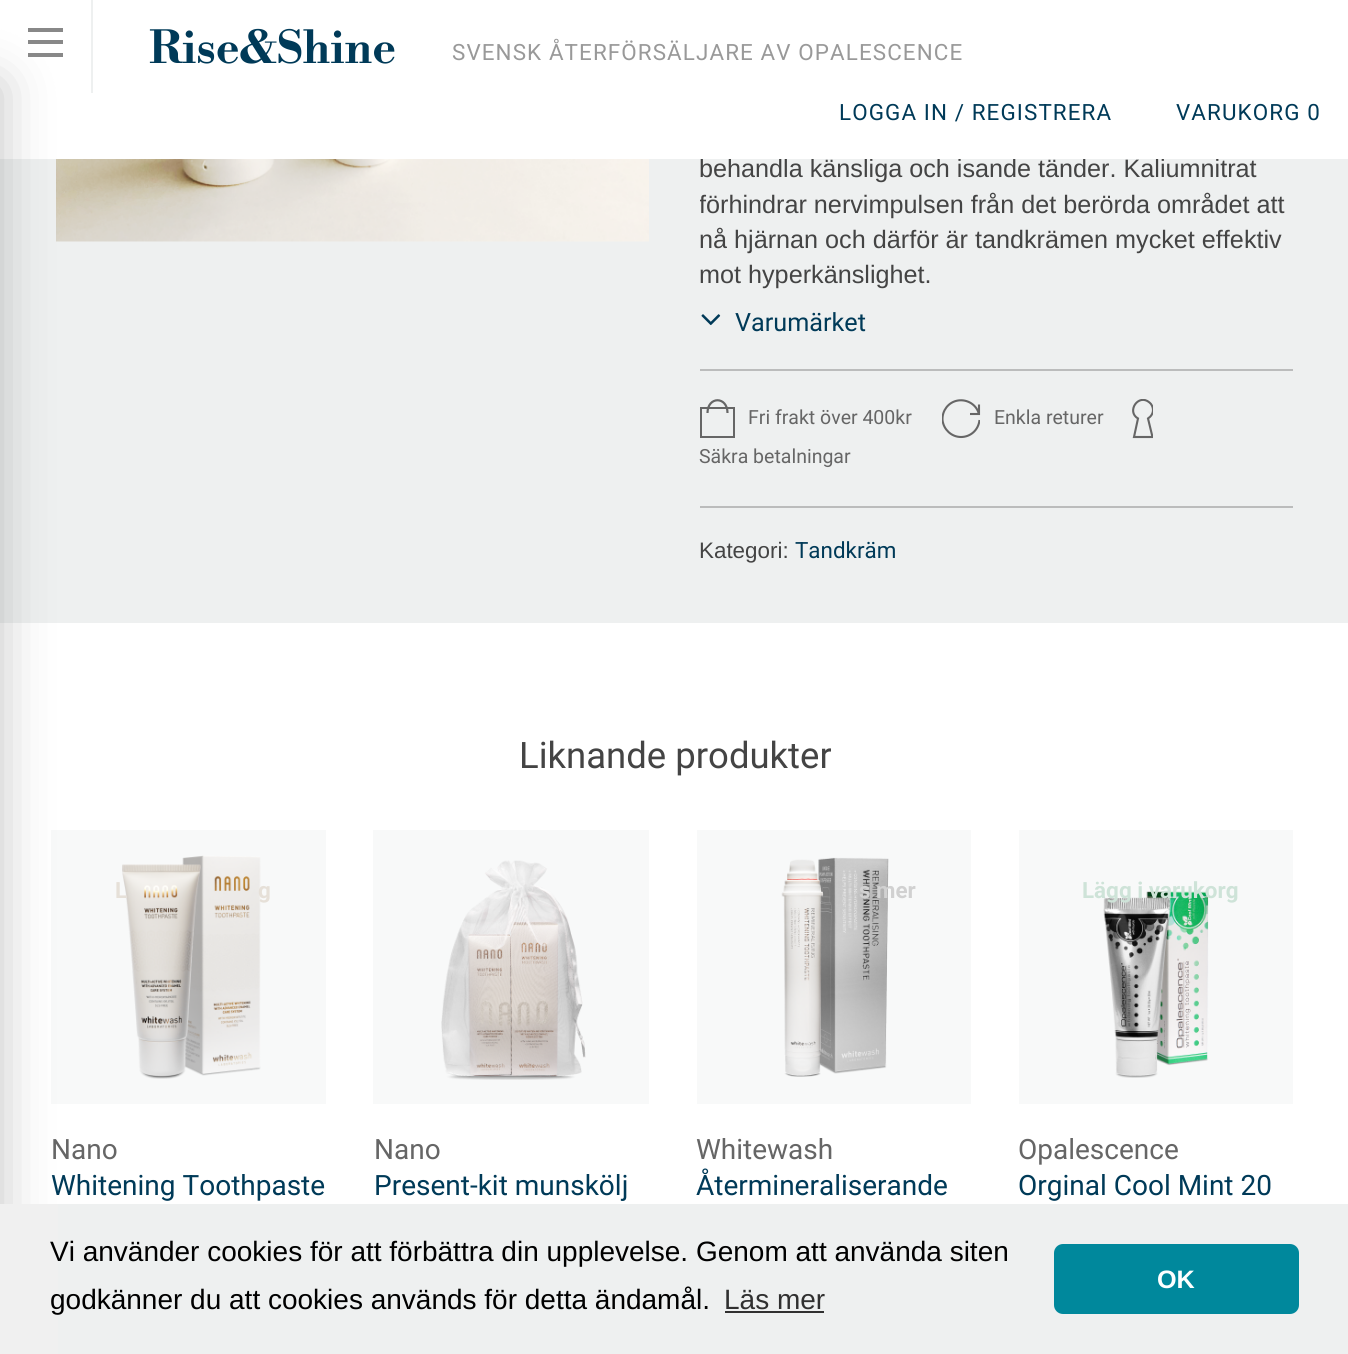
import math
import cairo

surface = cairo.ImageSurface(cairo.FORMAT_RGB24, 1348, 1354)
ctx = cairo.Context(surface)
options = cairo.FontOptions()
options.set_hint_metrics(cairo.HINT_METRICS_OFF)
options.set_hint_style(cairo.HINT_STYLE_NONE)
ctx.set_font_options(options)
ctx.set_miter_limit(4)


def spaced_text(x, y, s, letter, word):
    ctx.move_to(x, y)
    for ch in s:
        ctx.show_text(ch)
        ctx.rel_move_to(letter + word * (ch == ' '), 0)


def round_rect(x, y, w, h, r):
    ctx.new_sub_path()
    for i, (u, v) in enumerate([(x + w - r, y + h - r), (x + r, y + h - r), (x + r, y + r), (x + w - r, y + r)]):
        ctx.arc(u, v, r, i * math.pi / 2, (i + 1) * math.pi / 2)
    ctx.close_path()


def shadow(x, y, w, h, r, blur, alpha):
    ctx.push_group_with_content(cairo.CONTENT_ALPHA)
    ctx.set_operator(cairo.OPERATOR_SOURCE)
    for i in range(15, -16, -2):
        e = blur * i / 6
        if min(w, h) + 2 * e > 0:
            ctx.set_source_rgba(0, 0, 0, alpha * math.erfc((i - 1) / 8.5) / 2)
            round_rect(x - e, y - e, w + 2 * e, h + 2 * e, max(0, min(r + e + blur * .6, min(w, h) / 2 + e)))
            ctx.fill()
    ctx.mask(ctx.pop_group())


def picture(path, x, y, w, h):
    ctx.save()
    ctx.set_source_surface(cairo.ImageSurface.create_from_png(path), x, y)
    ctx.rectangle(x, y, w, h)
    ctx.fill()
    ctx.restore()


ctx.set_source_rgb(0.933, 0.941, 0.941)
ctx.paint()
ctx.select_font_face("Liberation Sans")
ctx.set_font_size(25.2)
ctx.set_source_rgb(0.267, 0.267, 0.267)
ctx.move_to(699, 177)
ctx.show_text("behandla känsliga och isande tänder. Kaliumnitrat")
ctx.set_source_rgb(1, 1, 1)
ctx.rectangle(0, 0, 1348, 159)
ctx.fill()
ctx.set_source_rgb(0.533, 0.533, 0.533)
ctx.rectangle(28, 28, 35, 4)
ctx.fill()
ctx.rectangle(28, 40, 35, 4)
ctx.fill()
ctx.rectangle(28, 53, 35, 4)
ctx.fill()
picture("img1.png", 56, 159, 593, 83)
ctx.set_source_rgb(1, 1, 1)
ctx.rectangle(0, 623, 1348, 581)
ctx.fill()
ctx.set_source_rgb(0.969, 0.973, 0.973)
ctx.rectangle(51, 830, 275, 274)
ctx.fill()
ctx.set_source_rgb(0.533, 0.533, 0.533)
shadow(-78, 84, 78, 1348, 0, 26, 0.5)
ctx.set_source_rgb(0.933, 0.941, 0.941)
ctx.rectangle(91, 0, 2, 93)
ctx.fill()
ctx.select_font_face("Libre Bodoni", cairo.FONT_SLANT_NORMAL, cairo.FONT_WEIGHT_BOLD)
ctx.set_font_size(44.75)
ctx.set_source_rgb(0, 0.227, 0.345)
ctx.move_to(149, 63)
ctx.show_text("Rise&Shine")
ctx.select_font_face("Roboto")
ctx.set_font_size(22.4)
ctx.set_source_rgb(0.6, 0.6, 0.6)
spaced_text(452, 60, "SVENSK ÅTERFÖRSÄLJARE AV OPALESCENCE", 1.1, 0)
ctx.set_source_rgb(0, 0.227, 0.345)
spaced_text(839, 120, "LOGGA IN / REGISTRERA", 1.1, 0)
spaced_text(1176, 120, "VARUKORG 0", 1.1, 0)
ctx.save()
ctx.rectangle(700, 0, 593, 567)
ctx.clip()
ctx.select_font_face("Liberation Sans")
ctx.set_font_size(25.2)
ctx.set_source_rgb(0.267, 0.267, 0.267)
ctx.move_to(699, 213)
ctx.show_text("förhindrar nervimpulsen från det berörda området att")
ctx.restore()
ctx.select_font_face("Liberation Sans")
ctx.set_font_size(25.2)
ctx.set_source_rgb(0.267, 0.267, 0.267)
ctx.move_to(699, 248)
ctx.show_text("nå hjärnan och därför är tandkrämen mycket effektiv")
ctx.move_to(699, 283)
ctx.show_text("mot hyperkänslighet.")
picture("img2.png", 701, 314, 20, 12)
ctx.select_font_face("Roboto")
ctx.set_source_rgb(0, 0.227, 0.345)
ctx.move_to(735, 331)
ctx.show_text("Varumärket")
ctx.set_source_rgb(0.733, 0.737, 0.737)
ctx.rectangle(700, 369, 593, 2)
ctx.fill()
ctx.rectangle(700, 506, 593, 2)
ctx.fill()
ctx.rectangle(701, 408, 33, 29)
ctx.set_source_rgb(0.4, 0.4, 0.4)
ctx.stroke()
ctx.new_path()
ctx.move_to(727.5, 413)
ctx.curve_to(727.5, 396, 707.5, 396, 707.5, 413)
ctx.set_line_width(2.2)
ctx.stroke()
ctx.set_font_size(19.5)
ctx.move_to(748, 424)
ctx.show_text("Fri frakt över 400kr")
ctx.save()
ctx.rectangle(942, 399, 38, 40)
ctx.clip()
ctx.new_path()
ctx.move_to(979, 414.5)
ctx.curve_to(977, 405, 967.5, 399, 958, 400.5)
ctx.curve_to(948.5, 402, 942, 410.5, 942.5, 420)
ctx.curve_to(943.5, 429.5, 951.5, 437, 961, 437)
ctx.curve_to(970.5, 437, 978.5, 430, 979.5, 420)
ctx.set_line_width(2.1)
ctx.stroke()
ctx.restore()
ctx.new_path()
ctx.move_to(970, 414)
ctx.line_to(979, 414)
ctx.line_to(979, 404.5)
ctx.set_line_width(2.1)
ctx.stroke()
ctx.move_to(994, 424)
ctx.show_text("Enkla returer")
ctx.save()
ctx.rectangle(1132, 399, 21, 40)
ctx.clip()
ctx.new_path()
ctx.move_to(1153, 410)
ctx.curve_to(1153, 407, 1151.5, 404, 1149.5, 402.5)
ctx.curve_to(1138.5, 393, 1126, 411.5, 1138, 418.5)
ctx.line_to(1134, 437)
ctx.line_to(1152.5, 437)
ctx.line_to(1148, 418.5)
ctx.curve_to(1151, 416.5, 1153, 413.5, 1153, 410)
ctx.close_path()
ctx.stroke()
ctx.restore()
ctx.move_to(699, 463)
ctx.show_text("Säkra betalningar")
ctx.select_font_face("Liberation Sans")
ctx.set_font_size(22.4)
ctx.set_source_rgb(0.267, 0.267, 0.267)
ctx.move_to(699, 558)
ctx.show_text("Kategori:")
ctx.select_font_face("Roboto")
ctx.set_source_rgb(0, 0.227, 0.345)
ctx.move_to(795, 558)
ctx.show_text("Tandkräm")
ctx.set_font_size(36.5)
ctx.set_source_rgb(0.267, 0.267, 0.267)
ctx.move_to(519, 768)
ctx.show_text("Liknande produkter")
picture("img3.png", 122, 855, 139, 224)
ctx.select_font_face("Roboto", cairo.FONT_SLANT_NORMAL, cairo.FONT_WEIGHT_BOLD)
ctx.set_font_size(22.4)
ctx.set_source_rgb(0.902, 0.878, 0.847)
ctx.move_to(115, 898)
ctx.show_text("L")
ctx.move_to(258, 898)
ctx.show_text("g")
ctx.select_font_face("Roboto")
ctx.set_font_size(28)
ctx.set_source_rgb(0.4, 0.4, 0.4)
ctx.move_to(51, 1159)
ctx.show_text("Nano")
ctx.set_source_rgb(0, 0.227, 0.345)
ctx.move_to(51, 1195)
ctx.show_text("Whitening Toothpaste")
ctx.set_source_rgb(0.969, 0.973, 0.973)
ctx.rectangle(373, 830, 276, 274)
ctx.fill()
picture("img4.png", 441, 860, 145, 220)
ctx.set_source_rgb(0.4, 0.4, 0.4)
ctx.move_to(374, 1159)
ctx.show_text("Nano")
ctx.set_source_rgb(0, 0.227, 0.345)
ctx.move_to(374, 1195)
ctx.show_text("Present-kit munskölj")
ctx.set_source_rgb(0.969, 0.973, 0.973)
ctx.rectangle(697, 830, 274, 274)
ctx.fill()
picture("img5.png", 781, 857, 108, 220)
ctx.select_font_face("Roboto", cairo.FONT_SLANT_NORMAL, cairo.FONT_WEIGHT_BOLD)
ctx.set_font_size(22.4)
ctx.set_source_rgb(0.82, 0.82, 0.82)
ctx.move_to(859, 898)
ctx.show_text("s mer")
ctx.select_font_face("Roboto")
ctx.set_font_size(28)
ctx.set_source_rgb(0.4, 0.4, 0.4)
ctx.move_to(696, 1159)
ctx.show_text("Whitewash")
ctx.set_source_rgb(0, 0.227, 0.345)
ctx.move_to(696, 1195)
ctx.show_text("Återmineraliserande")
ctx.set_source_rgb(0.969, 0.973, 0.973)
ctx.rectangle(1019, 830, 274, 274)
ctx.fill()
picture("img6.png", 1103, 891, 106, 187)
ctx.select_font_face("Roboto", cairo.FONT_SLANT_NORMAL, cairo.FONT_WEIGHT_BOLD)
ctx.set_font_size(22.4)
ctx.set_source_rgb(0.808, 0.89, 0.847)
ctx.move_to(1082, 898)
ctx.show_text("Lägg i varukorg")
ctx.select_font_face("Roboto")
ctx.set_font_size(28)
ctx.set_source_rgb(0.4, 0.4, 0.4)
ctx.move_to(1018, 1159)
ctx.show_text("Opalescence")
ctx.set_source_rgb(0, 0.227, 0.345)
ctx.move_to(1018, 1195)
ctx.show_text("Orginal Cool Mint 20")
ctx.set_source_rgb(0.941, 0.941, 0.941)
ctx.rectangle(0, 1204, 58, 150)
ctx.fill()
ctx.select_font_face("Liberation Sans")
ctx.set_source_rgb(0, 0, 0)
ctx.move_to(50, 1261)
ctx.show_text("Vi använder cookies för att förbättra din upplevelse. Genom att använda siten")
ctx.move_to(50, 1309)
ctx.show_text("godkänner du att cookies används för detta ändamål.")
ctx.set_source_rgb(0.188, 0.188, 0.188)
ctx.move_to(724, 1309)
ctx.show_text("Läs mer")
ctx.rectangle(725, 1311, 99, 2)
ctx.fill()
ctx.set_source_rgb(0, 0.533, 0.612)
round_rect(1054, 1244, 245, 70, 9)
ctx.fill()
ctx.select_font_face("Liberation Sans", cairo.FONT_SLANT_NORMAL, cairo.FONT_WEIGHT_BOLD)
ctx.set_font_size(25.2)
ctx.set_source_rgb(1, 1, 1)
ctx.move_to(1157, 1288)
ctx.show_text("OK")
surface.write_to_png("page.png")
